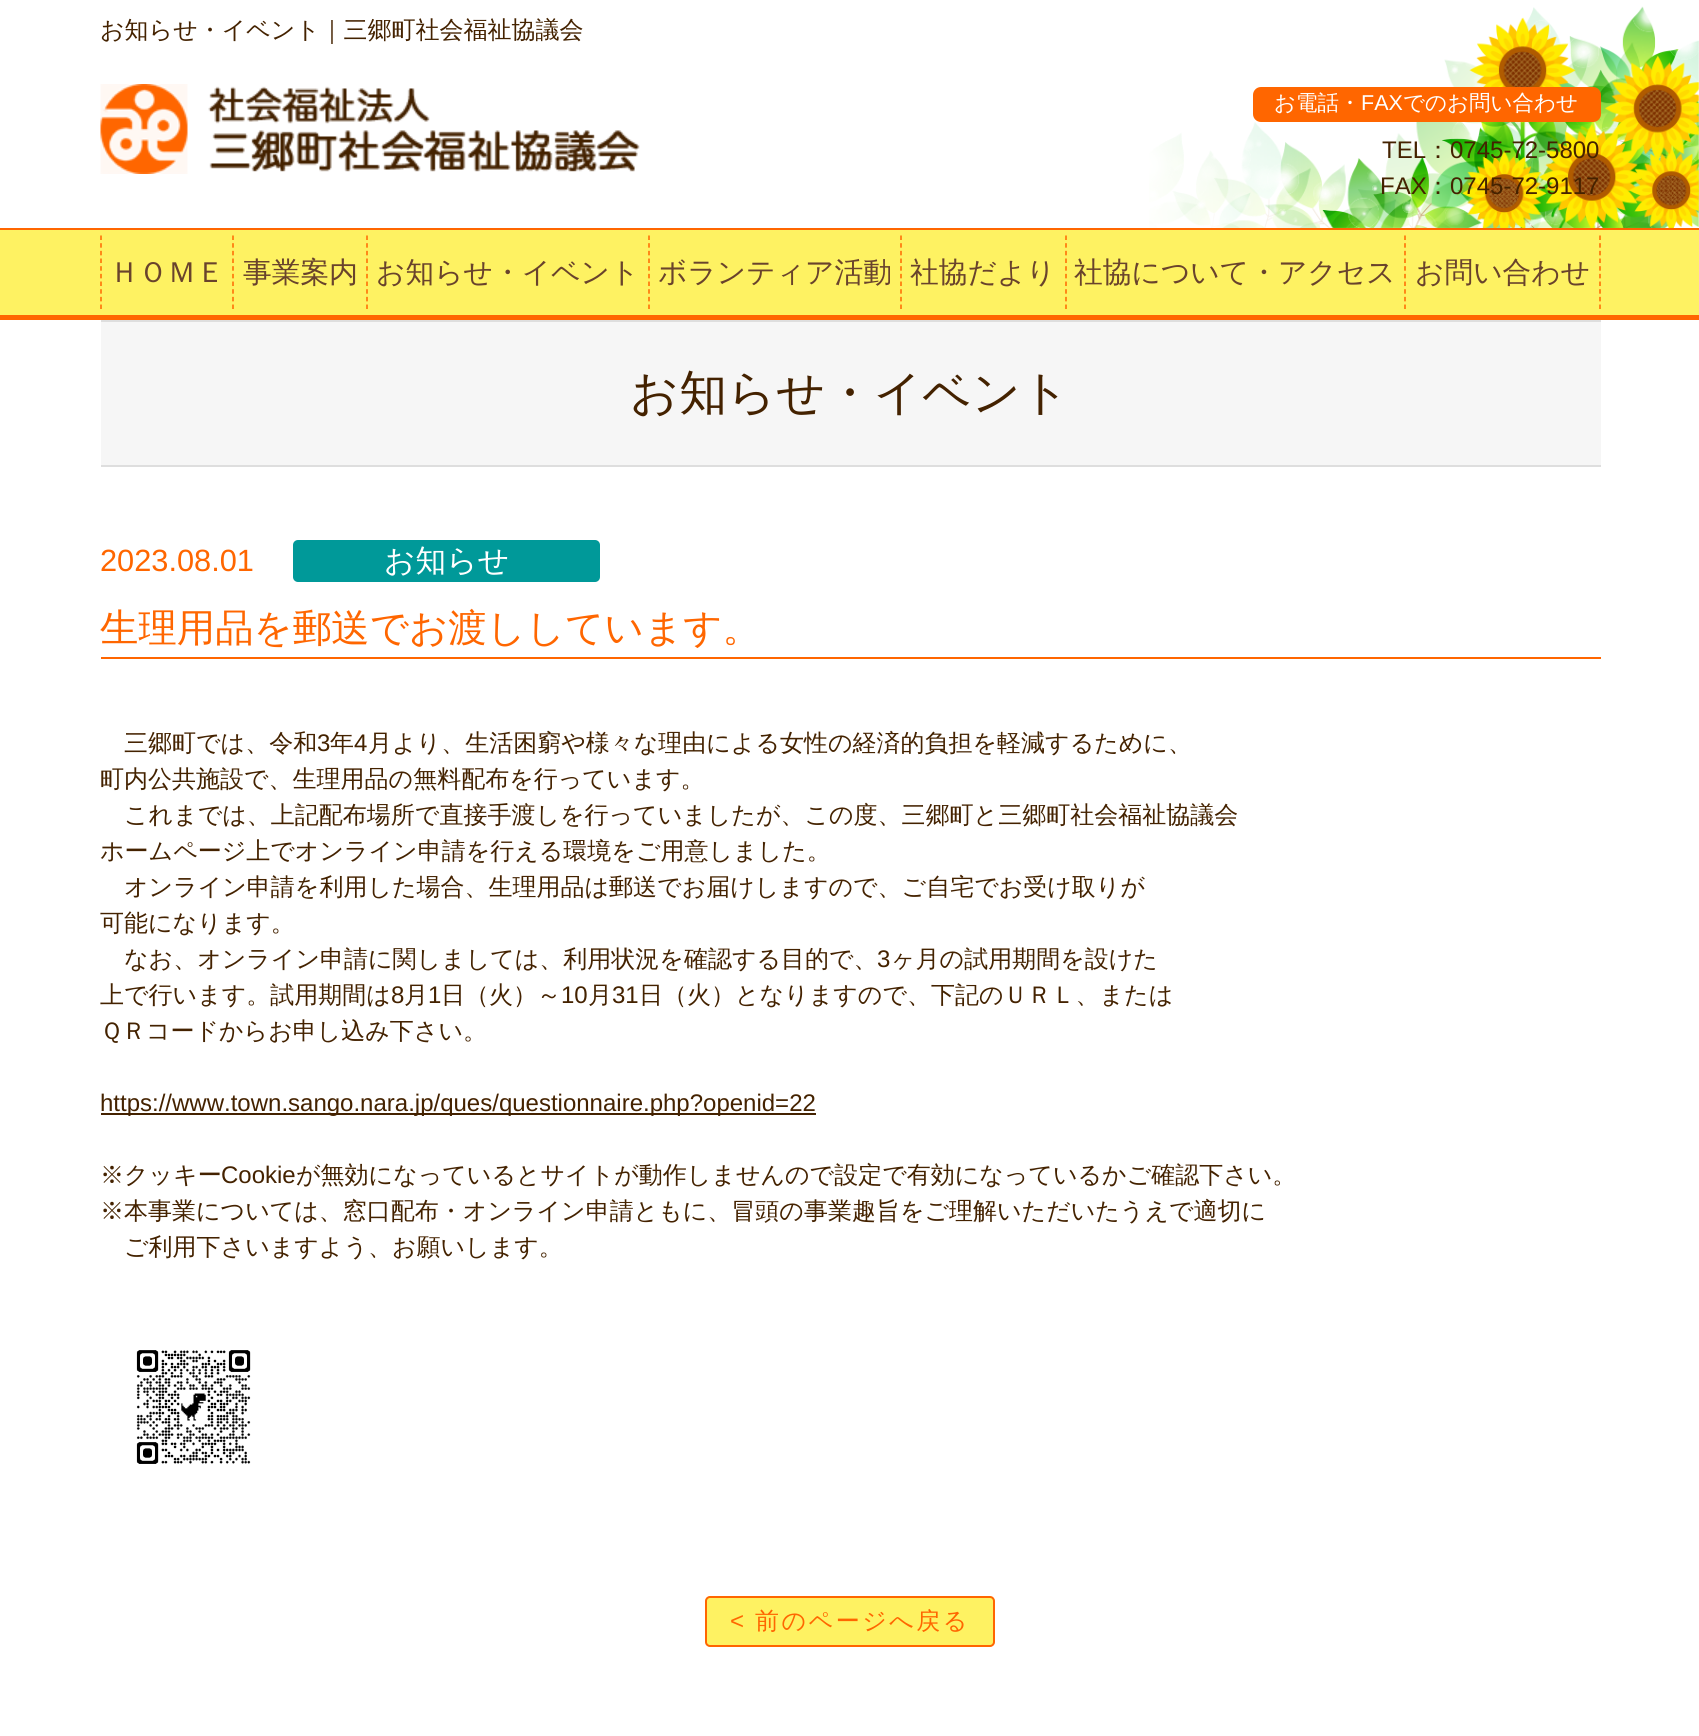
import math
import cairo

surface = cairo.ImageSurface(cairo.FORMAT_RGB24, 1699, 1736)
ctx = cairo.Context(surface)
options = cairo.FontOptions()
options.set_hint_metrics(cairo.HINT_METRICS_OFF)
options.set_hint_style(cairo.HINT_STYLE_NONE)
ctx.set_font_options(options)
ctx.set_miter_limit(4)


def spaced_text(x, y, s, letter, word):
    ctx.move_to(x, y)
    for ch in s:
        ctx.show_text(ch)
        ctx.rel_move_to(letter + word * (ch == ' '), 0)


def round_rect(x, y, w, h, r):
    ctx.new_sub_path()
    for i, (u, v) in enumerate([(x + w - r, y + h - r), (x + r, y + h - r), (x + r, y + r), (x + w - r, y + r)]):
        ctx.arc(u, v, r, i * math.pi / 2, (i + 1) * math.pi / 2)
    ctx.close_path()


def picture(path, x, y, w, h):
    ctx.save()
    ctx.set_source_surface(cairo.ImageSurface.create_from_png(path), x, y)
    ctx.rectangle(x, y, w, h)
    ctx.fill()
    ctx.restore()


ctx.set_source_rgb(1, 1, 1)
ctx.paint()
picture("img1.png", 1149, 6, 550, 222)
ctx.select_font_face("WenQuanYi Zen Hei Medium")
ctx.set_font_size(24)
ctx.set_source_rgb(0.267, 0.133, 0)
ctx.move_to(100, 38)
ctx.show_text("お知らせ・イベント｜三郷町社会福祉協議会")
picture("img2.png", 100, 84, 540, 90)
ctx.set_source_rgb(1, 0.4, 0)
round_rect(1253, 87, 348, 35, 8)
ctx.fill()
ctx.set_font_size(21.5)
ctx.set_source_rgb(1, 1, 1)
ctx.move_to(1274, 110)
ctx.show_text("お電話・")
ctx.select_font_face("Liberation Sans")
ctx.move_to(1361, 110)
ctx.show_text("FAX")
ctx.select_font_face("WenQuanYi Zen Hei Medium")
ctx.move_to(1403, 110)
ctx.show_text("でのお問い合わせ")
ctx.select_font_face("Liberation Sans")
ctx.set_font_size(24)
ctx.set_source_rgb(0.267, 0.133, 0)
ctx.move_to(1382, 158)
ctx.show_text("TEL")
ctx.select_font_face("WenQuanYi Zen Hei Medium")
ctx.move_to(1426, 158)
ctx.show_text("：")
ctx.select_font_face("Liberation Sans")
ctx.move_to(1450, 158)
ctx.show_text("0745-72-5800")
ctx.move_to(1380, 194)
ctx.show_text("FAX")
ctx.select_font_face("WenQuanYi Zen Hei Medium")
ctx.move_to(1426, 194)
ctx.show_text("：")
ctx.select_font_face("Liberation Sans")
ctx.move_to(1450, 194)
ctx.show_text("0745-72-9117")
ctx.set_source_rgb(0.996, 0.949, 0.384)
ctx.rectangle(0, 230, 1699, 85)
ctx.fill()
ctx.set_source_rgb(1, 0.4, 0)
ctx.rectangle(0, 228, 1699, 2)
ctx.fill()
ctx.rectangle(0, 315, 1699, 5)
ctx.fill()
ctx.new_path()
ctx.move_to(233, 235.5)
ctx.line_to(233, 309)
ctx.set_line_width(1.5)
ctx.set_dash([4.5, 3.17])
ctx.stroke()
ctx.new_path()
ctx.move_to(101, 235.5)
ctx.line_to(101, 309)
ctx.stroke()
ctx.select_font_face("WenQuanYi Zen Hei Medium")
ctx.set_font_size(28.75)
ctx.set_source_rgb(0.412, 0.263, 0.173)
ctx.move_to(110, 282)
ctx.show_text("ＨＯＭＥ")
ctx.new_path()
ctx.move_to(367, 235.5)
ctx.line_to(367, 309)
ctx.set_source_rgb(1, 0.4, 0)
ctx.stroke()
ctx.set_source_rgb(0.412, 0.263, 0.173)
ctx.move_to(243, 282)
ctx.show_text("事業案内")
ctx.new_path()
ctx.move_to(649, 235.5)
ctx.line_to(649, 309)
ctx.set_source_rgb(1, 0.4, 0)
ctx.stroke()
ctx.set_source_rgb(0.412, 0.263, 0.173)
ctx.move_to(376, 282)
ctx.show_text("お知らせ・イベント")
ctx.new_path()
ctx.move_to(901, 235.5)
ctx.line_to(901, 309)
ctx.set_source_rgb(1, 0.4, 0)
ctx.stroke()
ctx.set_source_rgb(0.412, 0.263, 0.173)
ctx.move_to(658, 282)
ctx.show_text("ボランティア活動")
ctx.new_path()
ctx.move_to(1066, 235.5)
ctx.line_to(1066, 309)
ctx.set_source_rgb(1, 0.4, 0)
ctx.stroke()
ctx.set_source_rgb(0.412, 0.263, 0.173)
ctx.move_to(910, 282)
ctx.show_text("社協だより")
ctx.new_path()
ctx.move_to(1405, 235.5)
ctx.line_to(1405, 309)
ctx.set_source_rgb(1, 0.4, 0)
ctx.stroke()
ctx.set_source_rgb(0.412, 0.263, 0.173)
ctx.move_to(1074, 282)
ctx.show_text("社協について・アクセス")
ctx.new_path()
ctx.move_to(1600, 235.5)
ctx.line_to(1600, 309)
ctx.set_source_rgb(1, 0.4, 0)
ctx.stroke()
ctx.set_source_rgb(0.412, 0.263, 0.173)
ctx.move_to(1415, 282)
ctx.show_text("お問い合わせ")
ctx.set_source_rgb(0.961, 0.961, 0.961)
ctx.rectangle(101, 322, 1500, 143)
ctx.fill()
ctx.set_source_rgb(0.871, 0.871, 0.871)
ctx.rectangle(101, 320, 1500, 2)
ctx.fill()
ctx.rectangle(101, 465, 1500, 2)
ctx.fill()
ctx.set_font_size(48)
ctx.set_source_rgb(0.267, 0.133, 0)
ctx.move_to(630, 409)
ctx.show_text("お知らせ・イベント")
ctx.set_source_rgb(1, 0.4, 0)
ctx.rectangle(101, 657, 1500, 2)
ctx.fill()
ctx.select_font_face("Liberation Sans")
ctx.set_font_size(30.75)
ctx.move_to(100, 571)
ctx.show_text("2023.08.01")
ctx.set_source_rgb(0, 0.6, 0.6)
round_rect(293, 540, 307, 42, 5)
ctx.fill()
ctx.select_font_face("WenQuanYi Zen Hei Medium")
ctx.set_source_rgb(1, 1, 1)
ctx.move_to(384, 571)
ctx.show_text("お知らせ")
ctx.set_font_size(38.4)
ctx.set_source_rgb(1, 0.4, 0)
ctx.move_to(100, 641)
ctx.show_text("生理用品を郵送でお渡ししています。")
ctx.set_font_size(24)
ctx.set_source_rgb(0.267, 0.133, 0)
ctx.move_to(124, 751)
ctx.show_text("三郷町では、令和")
ctx.select_font_face("Liberation Sans")
ctx.move_to(317, 751)
ctx.show_text("3")
ctx.select_font_face("WenQuanYi Zen Hei Medium")
ctx.move_to(330, 751)
ctx.show_text("年")
ctx.select_font_face("Liberation Sans")
ctx.move_to(354, 751)
ctx.show_text("4")
ctx.select_font_face("WenQuanYi Zen Hei Medium")
ctx.move_to(368, 751)
ctx.show_text("月より、生活困窮や様々な理由による女性の経済的負担を軽減するために、")
ctx.move_to(100, 787)
ctx.show_text("町内公共施設で、生理用品の無料配布を行っています。")
ctx.move_to(124, 823)
ctx.show_text("これまでは、上記配布場所で直接手渡しを行っていましたが、この度、三郷町と三郷町社会福祉協議会")
ctx.move_to(100, 859)
ctx.show_text("ホームページ上でオンライン申請を行える環境をご用意しました。")
ctx.move_to(124, 895)
ctx.show_text("オンライン申請を利用した場合、生理用品は郵送でお届けしますので、ご自宅でお受け取りが")
ctx.move_to(100, 931)
ctx.show_text("可能になります。")
ctx.move_to(124, 967)
ctx.show_text("なお、オンライン申請に関しましては、利用状況を確認する目的で、")
ctx.select_font_face("Liberation Sans")
ctx.move_to(877, 967)
ctx.show_text("3")
ctx.select_font_face("WenQuanYi Zen Hei Medium")
ctx.move_to(891, 967)
ctx.show_text("ヶ月の試用期間を設けた")
ctx.move_to(100, 1003)
ctx.show_text("上で行います。試用期間は")
ctx.select_font_face("Liberation Sans")
ctx.move_to(391, 1003)
ctx.show_text("8")
ctx.select_font_face("WenQuanYi Zen Hei Medium")
ctx.move_to(404, 1003)
ctx.show_text("月")
ctx.select_font_face("Liberation Sans")
ctx.move_to(428, 1003)
ctx.show_text("1")
ctx.select_font_face("WenQuanYi Zen Hei Medium")
ctx.move_to(441, 1003)
ctx.show_text("日（火）～")
ctx.select_font_face("Liberation Sans")
ctx.move_to(561, 1003)
ctx.show_text("10")
ctx.select_font_face("WenQuanYi Zen Hei Medium")
ctx.move_to(588, 1003)
ctx.show_text("月")
ctx.select_font_face("Liberation Sans")
ctx.move_to(612, 1003)
ctx.show_text("31")
ctx.select_font_face("WenQuanYi Zen Hei Medium")
ctx.move_to(639, 1003)
ctx.show_text("日（火）となりますので、下記のＵＲＬ、または")
ctx.move_to(100, 1039)
ctx.show_text("ＱＲコードからお申し込み下さい。")
ctx.rectangle(101, 1113, 715, 2)
ctx.fill()
ctx.select_font_face("Liberation Sans")
ctx.move_to(100, 1111)
ctx.show_text("https://www.town.sango.nara.jp/ques/questionnaire.php?openid=22")
ctx.select_font_face("WenQuanYi Zen Hei Medium")
ctx.move_to(100, 1183)
ctx.show_text("※クッキー")
ctx.select_font_face("Liberation Sans")
ctx.move_to(221, 1183)
ctx.show_text("Cookie")
ctx.select_font_face("WenQuanYi Zen Hei Medium")
ctx.move_to(296, 1183)
ctx.show_text("が無効になっているとサイトが動作しませんので設定で有効になっているかご確認下さい。")
ctx.move_to(100, 1219)
ctx.show_text("※本事業については、窓口配布・オンライン申請ともに、冒頭の事業趣旨をご理解いただいたうえで適切に")
ctx.move_to(124, 1255)
ctx.show_text("ご利用下さいますよう、お願いします。")
picture("img3.png", 136, 1350, 115, 114)
ctx.set_source_rgb(0.996, 0.949, 0.384)
round_rect(706, 1597, 288, 49, 4)
ctx.fill_preserve()
ctx.set_source_rgb(1, 0.4, 0)
ctx.set_line_width(2)
ctx.set_dash([])
ctx.stroke()
ctx.select_font_face("Liberation Sans")
spaced_text(730, 1629, "<", 2.5, 0)
ctx.select_font_face("WenQuanYi Zen Hei Medium")
spaced_text(755, 1629, "前のページへ戻る", 2.5, 0)
surface.write_to_png("page.png")
